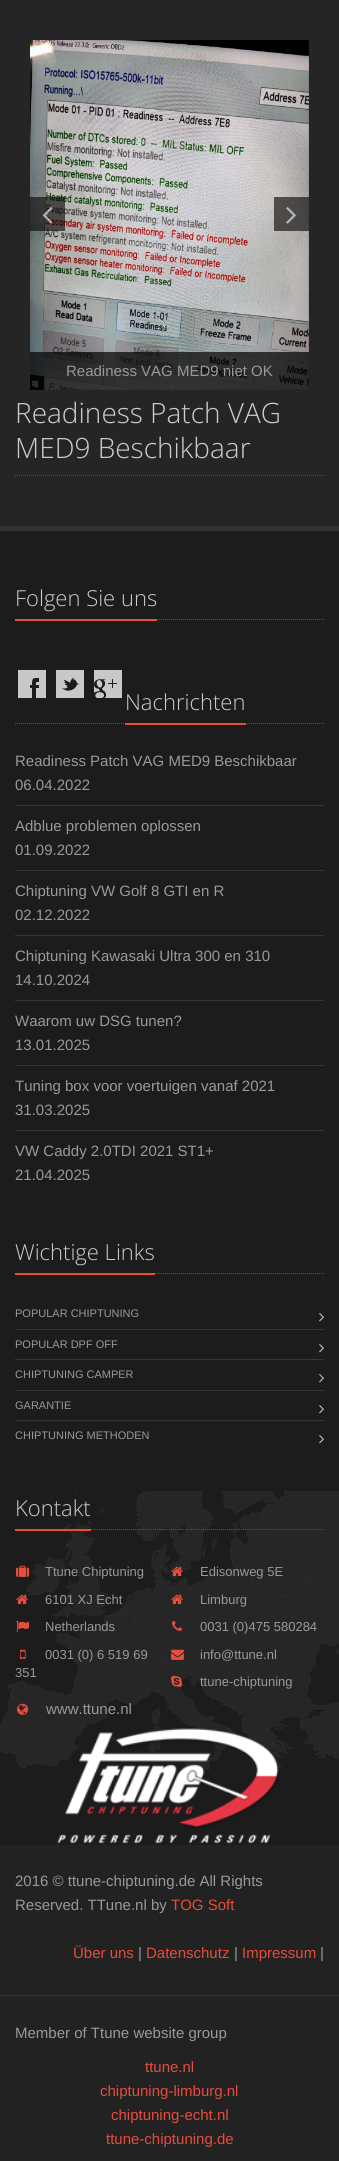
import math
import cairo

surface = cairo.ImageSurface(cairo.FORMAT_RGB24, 339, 2161)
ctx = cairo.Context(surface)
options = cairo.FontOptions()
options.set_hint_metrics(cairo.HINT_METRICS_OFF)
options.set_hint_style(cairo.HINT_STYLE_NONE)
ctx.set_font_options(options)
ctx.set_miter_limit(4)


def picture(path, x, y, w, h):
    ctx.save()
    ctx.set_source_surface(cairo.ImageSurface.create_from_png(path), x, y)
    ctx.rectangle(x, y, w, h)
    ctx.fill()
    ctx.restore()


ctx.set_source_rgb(0.145, 0.145, 0.145)
ctx.paint()
picture("img3.png", 30, 40, 279, 350)
ctx.set_source_rgba(0, 0, 0, 0.6)
ctx.rectangle(30, 197, 35, 34)
ctx.fill()
picture("img1.png", 42, 207, 11, 17)
ctx.rectangle(274, 197, 35, 34)
ctx.fill()
picture("img2.png", 286, 207, 10, 17)
ctx.set_source_rgba(0, 0, 0, 0.7)
ctx.rectangle(30, 352, 279, 38)
ctx.fill()
ctx.select_font_face("Liberation Sans")
ctx.set_font_size(15)
ctx.set_source_rgb(0.6, 0.6, 0.6)
ctx.move_to(66, 376)
ctx.show_text("Readiness VAG MED9 niet OK")
ctx.new_path()
ctx.move_to(15, 475.5)
ctx.line_to(324, 475.5)
ctx.set_source_rgb(0.333, 0.333, 0.333)
ctx.set_line_width(1)
ctx.set_dash([1, 1])
ctx.stroke()
ctx.select_font_face("Open Sans Light")
ctx.set_font_size(28)
ctx.set_source_rgb(0.8, 0.8, 0.8)
ctx.move_to(15, 423)
ctx.show_text("Readiness Patch VAG")
ctx.move_to(15, 458)
ctx.show_text("MED9 Beschikbaar")
ctx.set_source_rgb(0.11, 0.11, 0.11)
ctx.rectangle(0, 531, 339, 1314)
ctx.fill()
ctx.set_source_rgb(0.2, 0.2, 0.2)
ctx.rectangle(0, 526, 339, 5)
ctx.fill()
ctx.new_path()
ctx.move_to(15, 619.5)
ctx.line_to(324, 619.5)
ctx.set_source_rgb(0.333, 0.333, 0.333)
ctx.stroke()
ctx.set_source_rgb(0.906, 0.298, 0.235)
ctx.rectangle(15, 619, 142, 2)
ctx.fill()
ctx.set_font_size(22)
ctx.set_source_rgb(0.8, 0.8, 0.8)
ctx.move_to(15, 606)
ctx.show_text("Folgen Sie uns")
picture("img4.png", 18, 670, 28, 28)
picture("img5.png", 56, 670, 28, 28)
picture("img6.png", 94, 670, 28, 28)
ctx.new_path()
ctx.move_to(15, 723.5)
ctx.line_to(324, 723.5)
ctx.set_source_rgb(0.333, 0.333, 0.333)
ctx.stroke()
ctx.set_source_rgb(0.906, 0.298, 0.235)
ctx.rectangle(125, 723, 121, 2)
ctx.fill()
ctx.set_source_rgb(0.8, 0.8, 0.8)
ctx.move_to(125, 710)
ctx.show_text("Nachrichten")
ctx.select_font_face("Liberation Sans")
ctx.set_font_size(15)
ctx.set_source_rgb(0.6, 0.6, 0.6)
ctx.move_to(15, 766)
ctx.show_text("Readiness Patch VAG MED9 Beschikbaar")
ctx.move_to(15, 790)
ctx.show_text("06.04.2022")
ctx.set_source_rgb(0.208, 0.208, 0.208)
ctx.rectangle(15, 805, 309, 1)
ctx.fill()
ctx.set_source_rgb(0.6, 0.6, 0.6)
ctx.move_to(15, 831)
ctx.show_text("Adblue problemen oplossen")
ctx.move_to(15, 855)
ctx.show_text("01.09.2022")
ctx.set_source_rgb(0.208, 0.208, 0.208)
ctx.rectangle(15, 870, 309, 1)
ctx.fill()
ctx.set_source_rgb(0.6, 0.6, 0.6)
ctx.move_to(15, 896)
ctx.show_text("Chiptuning VW Golf 8 GTI en R")
ctx.move_to(15, 920)
ctx.show_text("02.12.2022")
ctx.set_source_rgb(0.208, 0.208, 0.208)
ctx.rectangle(15, 935, 309, 1)
ctx.fill()
ctx.set_source_rgb(0.6, 0.6, 0.6)
ctx.move_to(15, 961)
ctx.show_text("Chiptuning Kawasaki Ultra 300 en 310")
ctx.move_to(15, 985)
ctx.show_text("14.10.2024")
ctx.set_source_rgb(0.208, 0.208, 0.208)
ctx.rectangle(15, 1000, 309, 1)
ctx.fill()
ctx.set_source_rgb(0.6, 0.6, 0.6)
ctx.move_to(15, 1026)
ctx.show_text("Waarom uw DSG tunen?")
ctx.move_to(15, 1050)
ctx.show_text("13.01.2025")
ctx.set_source_rgb(0.208, 0.208, 0.208)
ctx.rectangle(15, 1065, 309, 1)
ctx.fill()
ctx.set_source_rgb(0.6, 0.6, 0.6)
ctx.move_to(15, 1091)
ctx.show_text("Tuning box voor voertuigen vanaf 2021")
ctx.move_to(15, 1115)
ctx.show_text("31.03.2025")
ctx.set_source_rgb(0.208, 0.208, 0.208)
ctx.rectangle(15, 1130, 309, 1)
ctx.fill()
ctx.set_source_rgb(0.6, 0.6, 0.6)
ctx.move_to(15, 1156)
ctx.show_text("VW Caddy 2.0TDI 2021 ST1+")
ctx.move_to(15, 1180)
ctx.show_text("21.04.2025")
ctx.new_path()
ctx.move_to(15, 1273.5)
ctx.line_to(324, 1273.5)
ctx.set_source_rgb(0.333, 0.333, 0.333)
ctx.stroke()
ctx.set_source_rgb(0.906, 0.298, 0.235)
ctx.rectangle(15, 1273, 140, 2)
ctx.fill()
ctx.select_font_face("Open Sans Light")
ctx.set_font_size(22)
ctx.set_source_rgb(0.8, 0.8, 0.8)
ctx.move_to(15, 1260)
ctx.show_text("Wichtige Links")
ctx.select_font_face("Liberation Sans")
ctx.set_font_size(11)
ctx.set_source_rgb(0.6, 0.6, 0.6)
ctx.move_to(15, 1317)
ctx.show_text("POPULAR CHIPTUNING")
picture("img7.png", 319, 1313, 5, 9)
ctx.set_source_rgb(0.208, 0.208, 0.208)
ctx.rectangle(15, 1329, 309, 1)
ctx.fill()
ctx.set_source_rgb(0.6, 0.6, 0.6)
ctx.move_to(15, 1348)
ctx.show_text("POPULAR DPF OFF")
picture("img7.png", 319, 1344, 5, 9)
ctx.set_source_rgb(0.208, 0.208, 0.208)
ctx.rectangle(15, 1359, 309, 1)
ctx.fill()
ctx.set_source_rgb(0.6, 0.6, 0.6)
ctx.move_to(15, 1378)
ctx.show_text("CHIPTUNING CAMPER")
picture("img7.png", 319, 1374, 5, 9)
ctx.set_source_rgb(0.208, 0.208, 0.208)
ctx.rectangle(15, 1390, 309, 1)
ctx.fill()
ctx.set_source_rgb(0.6, 0.6, 0.6)
ctx.move_to(15, 1409)
ctx.show_text("GARANTIE")
picture("img7.png", 319, 1405, 5, 9)
ctx.set_source_rgb(0.208, 0.208, 0.208)
ctx.rectangle(15, 1420, 309, 1)
ctx.fill()
ctx.set_source_rgb(0.6, 0.6, 0.6)
ctx.move_to(15, 1439)
ctx.show_text("CHIPTUNING METHODEN")
picture("img7.png", 319, 1435, 5, 9)
picture("img8.png", 0, 1491, 339, 278)
ctx.new_path()
ctx.move_to(15, 1529.5)
ctx.line_to(324, 1529.5)
ctx.set_source_rgb(0.333, 0.333, 0.333)
ctx.stroke()
ctx.set_source_rgb(0.906, 0.298, 0.235)
ctx.rectangle(15, 1529, 76, 2)
ctx.fill()
ctx.select_font_face("Open Sans Light")
ctx.set_font_size(22)
ctx.set_source_rgb(0.8, 0.8, 0.8)
ctx.move_to(15, 1516)
ctx.show_text("Kontakt")
picture("img9.png", 16, 1565, 13, 12)
ctx.select_font_face("Liberation Sans")
ctx.set_font_size(13)
ctx.set_source_rgb(0.6, 0.6, 0.6)
ctx.move_to(45, 1576)
ctx.show_text("Ttune Chiptuning")
picture("img10.png", 171, 1566, 12, 10)
ctx.move_to(200, 1576)
ctx.show_text("Edisonweg 5E")
picture("img11.png", 16, 1594, 12, 10)
ctx.move_to(45, 1604)
ctx.show_text("6101 XJ Echt")
picture("img12.png", 171, 1594, 12, 10)
ctx.move_to(200, 1604)
ctx.show_text("Limburg")
picture("img13.png", 16, 1620, 13, 12)
ctx.move_to(45, 1631)
ctx.show_text("Netherlands")
picture("img14.png", 172, 1620, 11, 11)
ctx.move_to(200, 1631)
ctx.show_text("0031 (0)475 580284")
picture("img15.png", 20, 1649, 6, 10)
ctx.move_to(45, 1659)
ctx.show_text("0031 (0) 6 519 69")
ctx.move_to(15, 1677)
ctx.show_text("351")
picture("img16.png", 171, 1649, 13, 11)
ctx.move_to(200, 1659)
ctx.show_text("info@ttune.nl")
picture("img17.png", 171, 1675, 12, 12)
ctx.move_to(200, 1686)
ctx.show_text("ttune-chiptuning")
picture("img18.png", 17, 1703, 12, 12)
ctx.set_font_size(15)
ctx.move_to(46, 1714)
ctx.show_text("www.ttune.nl")
picture("img19.png", 57, 1728, 223, 116)
ctx.set_source_rgb(0.133, 0.133, 0.133)
ctx.rectangle(0, 1845, 339, 316)
ctx.fill()
ctx.set_source_rgb(0.2, 0.2, 0.2)
ctx.rectangle(0, 1995, 339, 1)
ctx.fill()
ctx.set_source_rgb(0.6, 0.6, 0.6)
ctx.move_to(15, 1886)
ctx.show_text("2016 © ttune-chiptuning.de All Rights")
ctx.move_to(15, 1910)
ctx.show_text("Reserved. TTune.nl by")
ctx.set_source_rgb(0.906, 0.298, 0.235)
ctx.move_to(171, 1910)
ctx.show_text("TOG Soft")
ctx.move_to(73, 1958)
ctx.show_text("Über uns")
ctx.set_source_rgb(0.6, 0.6, 0.6)
ctx.move_to(138, 1958)
ctx.show_text("|")
ctx.set_source_rgb(0.906, 0.298, 0.235)
ctx.move_to(146, 1958)
ctx.show_text("Datenschutz")
ctx.set_source_rgb(0.6, 0.6, 0.6)
ctx.move_to(234, 1958)
ctx.show_text("|")
ctx.set_source_rgb(0.906, 0.298, 0.235)
ctx.move_to(242, 1958)
ctx.show_text("Impressum")
ctx.set_source_rgb(0.6, 0.6, 0.6)
ctx.move_to(320, 1958)
ctx.show_text("|")
ctx.move_to(15, 2038)
ctx.show_text("Member of Ttune website group")
ctx.set_source_rgb(0.906, 0.298, 0.235)
ctx.move_to(145, 2072)
ctx.show_text("ttune.nl")
ctx.move_to(100, 2096)
ctx.show_text("chiptuning-limburg.nl")
ctx.move_to(111, 2120)
ctx.show_text("chiptuning-echt.nl")
ctx.move_to(106, 2144)
ctx.show_text("ttune-chiptuning.de")
surface.write_to_png("page.png")
